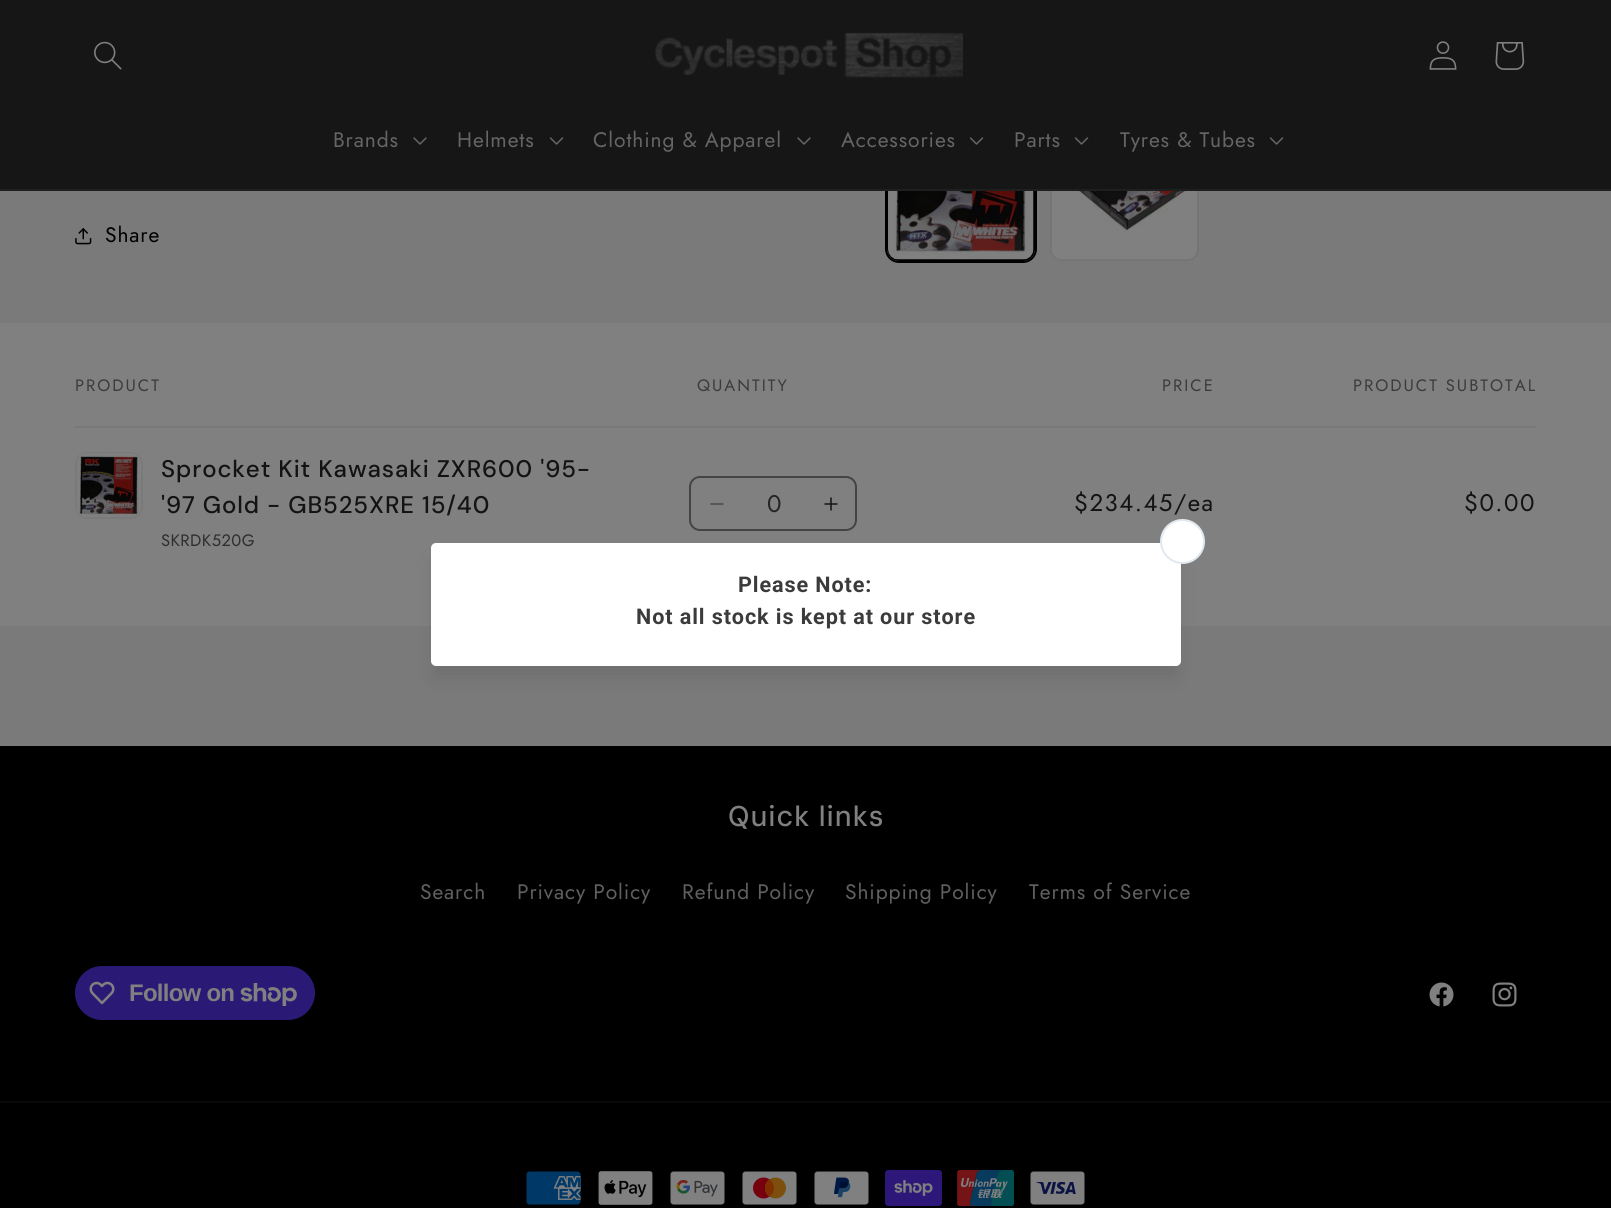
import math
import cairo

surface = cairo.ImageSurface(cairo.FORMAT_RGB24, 1611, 1208)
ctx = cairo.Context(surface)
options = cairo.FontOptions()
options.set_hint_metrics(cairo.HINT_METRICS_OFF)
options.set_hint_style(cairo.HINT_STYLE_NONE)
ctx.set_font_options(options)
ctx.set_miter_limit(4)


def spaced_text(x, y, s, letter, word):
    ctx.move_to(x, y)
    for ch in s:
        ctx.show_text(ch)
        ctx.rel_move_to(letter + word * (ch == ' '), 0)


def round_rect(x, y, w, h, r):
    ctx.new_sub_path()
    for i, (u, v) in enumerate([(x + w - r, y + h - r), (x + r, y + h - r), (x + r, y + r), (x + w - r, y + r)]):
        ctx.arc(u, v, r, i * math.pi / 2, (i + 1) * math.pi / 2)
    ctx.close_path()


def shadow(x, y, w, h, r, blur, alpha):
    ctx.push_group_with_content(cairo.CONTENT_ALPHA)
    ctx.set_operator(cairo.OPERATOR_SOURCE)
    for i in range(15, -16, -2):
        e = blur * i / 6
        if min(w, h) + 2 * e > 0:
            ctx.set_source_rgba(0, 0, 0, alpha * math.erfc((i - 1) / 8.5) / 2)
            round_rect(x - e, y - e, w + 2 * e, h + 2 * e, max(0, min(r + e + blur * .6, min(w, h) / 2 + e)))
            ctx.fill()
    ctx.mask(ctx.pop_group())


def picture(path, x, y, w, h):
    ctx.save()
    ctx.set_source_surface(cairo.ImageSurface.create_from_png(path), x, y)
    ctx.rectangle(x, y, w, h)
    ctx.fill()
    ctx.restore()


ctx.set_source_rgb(0.478, 0.478, 0.478)
ctx.paint()
round_rect(886, 112, 150, 150, 13)
ctx.set_source_rgb(0, 0, 0)
ctx.stroke()
round_rect(888, 114, 146, 146, 11)
ctx.stroke()
round_rect(1051, 114, 147, 146, 11)
ctx.set_source_rgb(0.455, 0.455, 0.455)
ctx.stroke()
ctx.set_source_rgb(0.086, 0.086, 0.09)
ctx.rectangle(0, 0, 1611, 189)
ctx.fill()
ctx.set_source_rgb(0.118, 0.122, 0.122)
ctx.rectangle(0, 189, 1611, 2)
ctx.fill()
picture("img1.png", 94, 41, 28, 29)
picture("img2.png", 654, 32, 309, 46)
picture("img3.png", 1429, 41, 28, 29)
picture("img4.png", 1495, 42, 30, 28)
ctx.select_font_face("Jost")
ctx.set_font_size(21)
ctx.set_source_rgb(0.396, 0.396, 0.4)
spaced_text(333, 147, "Brands", 0.9, 0)
picture("img5.png", 413, 137, 14, 8)
spaced_text(457, 147, "Helmets", 0.9, 0)
picture("img6.png", 549, 137, 15, 8)
spaced_text(593, 147, "Clothing & Apparel", 0.9, 0)
picture("img5.png", 797, 137, 14, 8)
spaced_text(841, 147, "Accessories", 0.9, 0)
picture("img6.png", 969, 137, 15, 8)
spaced_text(1014, 147, "Parts", 0.9, 0)
picture("img6.png", 1074, 137, 15, 8)
spaced_text(1120, 147, "Tyres & Tubes", 0.9, 0)
picture("img6.png", 1269, 137, 15, 8)
picture("img7.png", 75, 228, 17, 17)
ctx.set_source_rgb(0, 0, 0)
spaced_text(105, 242, "Share", 0.9, 0)
picture("img8.png", 888, 191, 146, 69)
picture("img9.png", 1051, 191, 146, 69)
ctx.set_source_rgb(0.502, 0.502, 0.502)
ctx.rectangle(0, 323, 1611, 303)
ctx.fill()
ctx.set_source_rgb(0.471, 0.471, 0.471)
ctx.rectangle(75, 426, 1461, 2)
ctx.fill()
ctx.set_font_size(16.5)
ctx.set_source_rgb(0.231, 0.231, 0.231)
spaced_text(75, 391, "PRODUCT", 2, 0)
spaced_text(697, 391, "QUANTITY", 2, 0)
spaced_text(1162, 391, "PRICE", 2, 0)
spaced_text(1353, 391, "PRODUCT SUBTOTAL", 2, 0)
round_rect(76, 453, 66, 65, 11)
ctx.set_source_rgb(0.478, 0.478, 0.478)
ctx.stroke()
picture("img10.png", 77, 453, 62, 64)
ctx.select_font_face("DM Sans Medium")
ctx.set_font_size(24)
ctx.set_source_rgb(0.075, 0.075, 0.075)
spaced_text(161, 477, "Sprocket Kit Kawasaki ZXR600 '95-", 0.9, 0)
spaced_text(161, 513, "'97 Gold - GB525XRE 15/40", 0.9, 0)
ctx.select_font_face("Jost")
ctx.set_font_size(16.5)
ctx.set_source_rgb(0.18, 0.18, 0.18)
spaced_text(161, 546, "SKRDK520G", 0.5, 0)
picture("img11.png", 710, 503, 14, 2)
picture("img12.png", 824, 497, 14, 14)
round_rect(690, 477, 166, 53, 10)
ctx.set_source_rgb(0.267, 0.267, 0.267)
ctx.stroke()
ctx.set_font_size(24)
ctx.set_source_rgb(0.141, 0.141, 0.141)
ctx.move_to(767, 512)
ctx.show_text("0")
ctx.set_source_rgb(0.075, 0.075, 0.075)
spaced_text(1074, 511, "$234.45/ea", 1.5, 0)
spaced_text(1464, 511, "$0.00", 1.5, 0)
ctx.set_source_rgb(0, 0, 0)
shadow(435, 563, 741, 114, 0, 11, 0.1)
ctx.set_source_rgb(1, 1, 1)
round_rect(431, 543, 750, 123, 5)
ctx.fill()
ctx.arc(1182.5, 541.5, 21.5, 0, 2 * math.pi)
ctx.fill_preserve()
ctx.set_source_rgb(0.886, 0.91, 0.941)
ctx.stroke()
ctx.select_font_face("Roboto", cairo.FONT_SLANT_NORMAL, cairo.FONT_WEIGHT_BOLD)
ctx.set_font_size(21.6)
ctx.set_source_rgb(0.231, 0.231, 0.231)
spaced_text(738, 592, "Please Note:", 0.9, 0)
spaced_text(636, 624, "Not all stock is kept at our store", 0.9, 0)
ctx.set_source_rgb(0, 0, 0)
ctx.rectangle(0, 746, 1611, 462)
ctx.fill()
ctx.select_font_face("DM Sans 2 Medium")
ctx.set_font_size(28.5)
ctx.set_source_rgb(0.502, 0.502, 0.502)
spaced_text(728, 826, "Quick links", 1, 0)
ctx.select_font_face("Jost")
ctx.set_font_size(21)
ctx.set_source_rgb(0.376, 0.376, 0.376)
spaced_text(420, 899, "Search", 0.9, 0)
spaced_text(517, 899, "Privacy Policy", 0.9, 0)
spaced_text(682, 899, "Refund Policy", 0.9, 0)
spaced_text(845, 899, "Shipping Policy", 0.9, 0)
spaced_text(1029, 899, "Terms of Service", 0.9, 0)
ctx.set_source_rgb(0.165, 0.102, 0.463)
round_rect(75, 966, 240, 54, 27)
ctx.fill()
picture("img13.png", 89, 981, 26, 24)
ctx.select_font_face("Liberation Sans", cairo.FONT_SLANT_NORMAL, cairo.FONT_WEIGHT_BOLD)
ctx.set_font_size(24)
ctx.set_source_rgb(0.502, 0.502, 0.502)
spaced_text(129, 1001, "Follow on", -0.75, 0)
picture("img14.png", 240, 983, 57, 23)
picture("img15.png", 1429, 982, 25, 25)
picture("img16.png", 1492, 982, 25, 25)
ctx.set_source_rgb(0.039, 0.039, 0.039)
ctx.rectangle(0, 1101, 1611, 2)
ctx.fill()
picture("img17.png", 526, 1171, 55, 34)
picture("img18.png", 598, 1171, 55, 34)
picture("img19.png", 670, 1171, 55, 34)
picture("img20.png", 742, 1171, 55, 34)
picture("img21.png", 814, 1171, 55, 34)
picture("img22.png", 885, 1170, 57, 36)
picture("img23.png", 957, 1170, 57, 36)
picture("img24.png", 1030, 1171, 55, 34)
surface.write_to_png("page.png")
